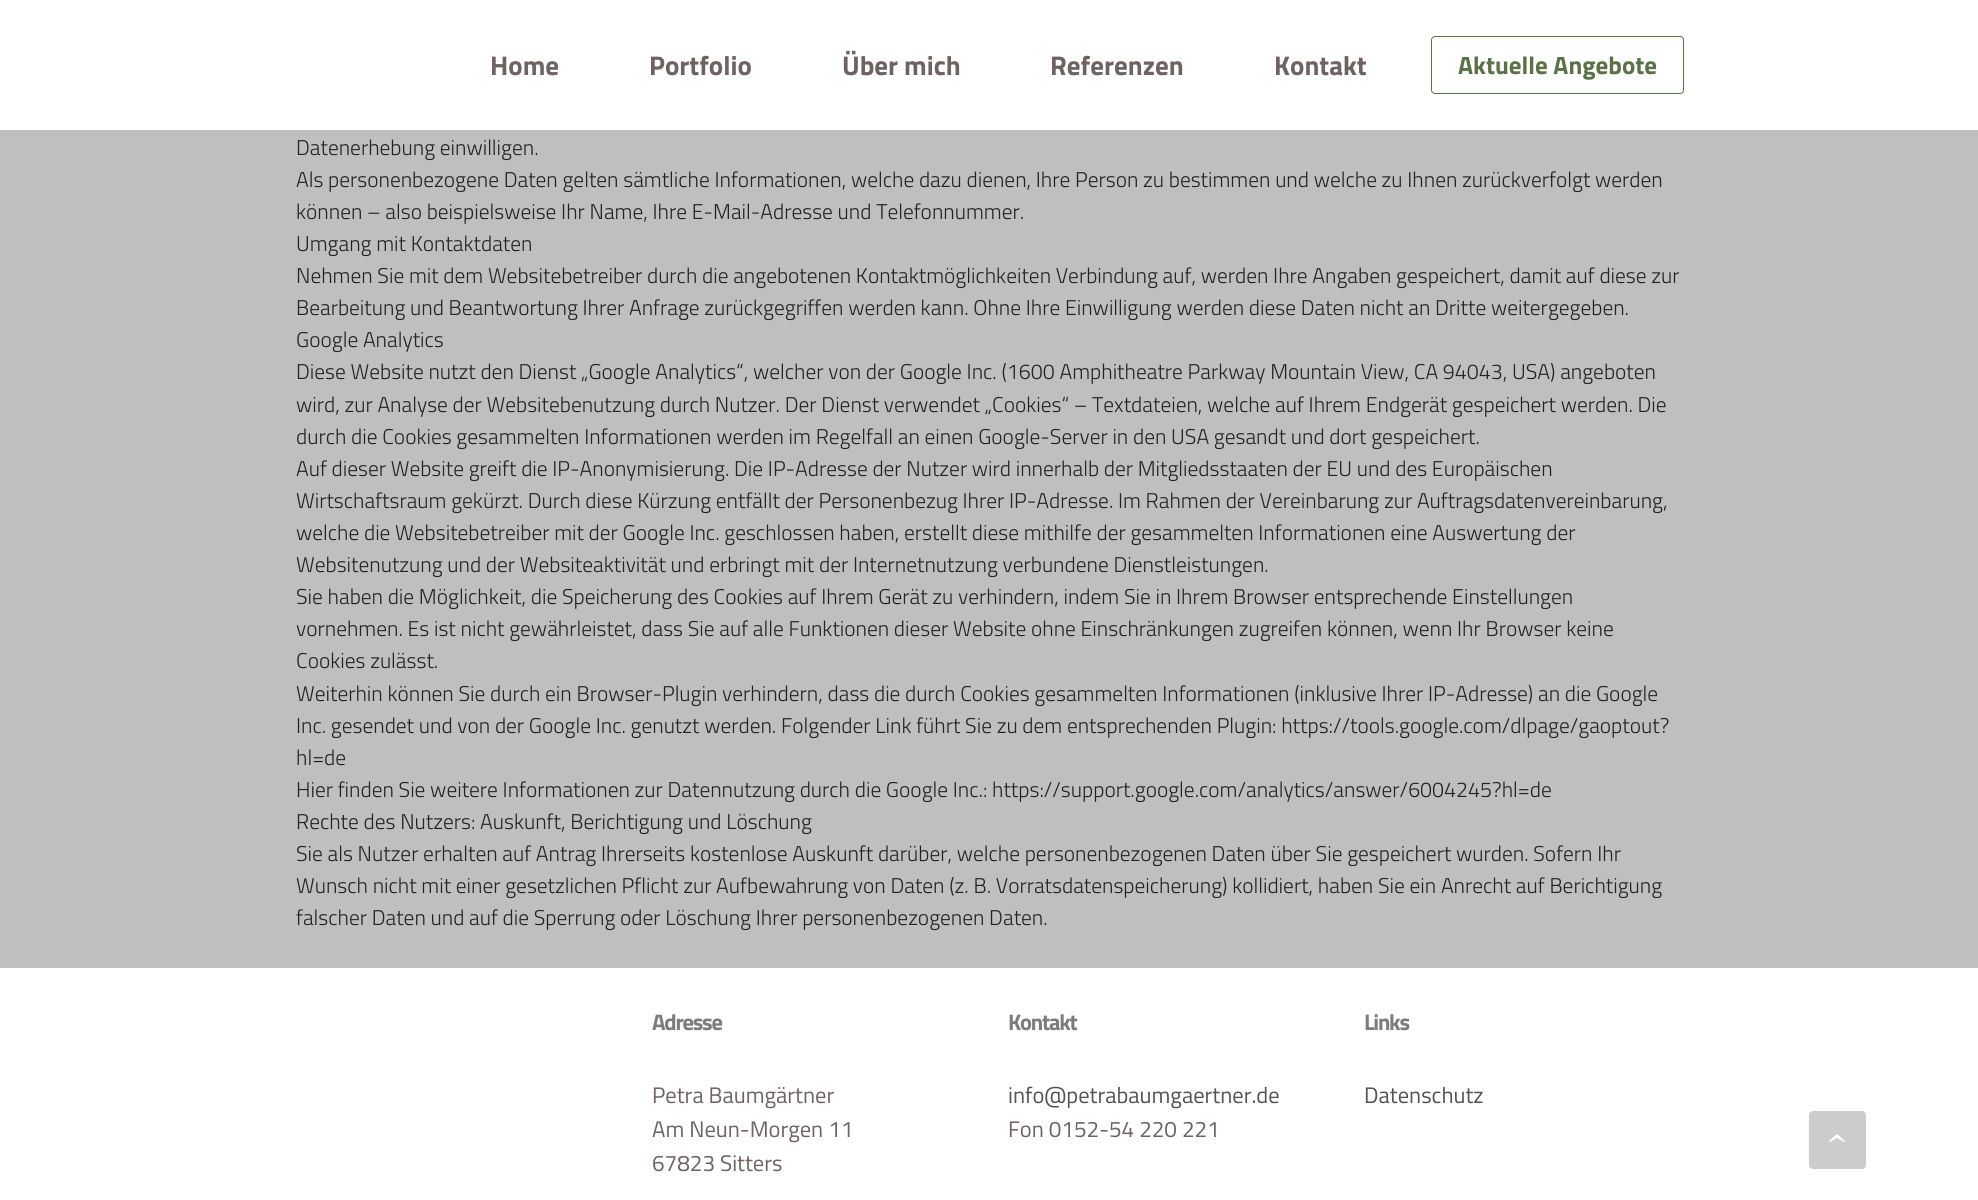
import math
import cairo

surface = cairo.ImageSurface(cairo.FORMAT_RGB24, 1978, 1200)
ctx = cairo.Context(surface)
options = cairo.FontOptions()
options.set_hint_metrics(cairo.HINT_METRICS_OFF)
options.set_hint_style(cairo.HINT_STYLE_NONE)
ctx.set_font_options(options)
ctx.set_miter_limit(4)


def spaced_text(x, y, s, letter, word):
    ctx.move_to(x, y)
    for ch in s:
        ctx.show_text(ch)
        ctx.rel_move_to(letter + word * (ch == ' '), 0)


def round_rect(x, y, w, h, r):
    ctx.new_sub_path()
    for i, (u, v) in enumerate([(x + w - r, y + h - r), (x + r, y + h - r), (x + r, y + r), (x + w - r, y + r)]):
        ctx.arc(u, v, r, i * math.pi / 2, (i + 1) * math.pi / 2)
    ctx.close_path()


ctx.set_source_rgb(1, 1, 1)
ctx.paint()
ctx.select_font_face("Titillium Web", cairo.FONT_SLANT_NORMAL, cairo.FONT_WEIGHT_BOLD)
ctx.set_font_size(27)
ctx.set_source_rgb(0.431, 0.384, 0.384)
ctx.move_to(490, 75)
ctx.show_text("Home")
ctx.move_to(649, 75)
ctx.show_text("Portfolio")
ctx.move_to(842, 75)
ctx.show_text("Über mich")
ctx.move_to(1050, 75)
ctx.show_text("Referenzen")
ctx.move_to(1274, 75)
ctx.show_text("Kontakt")
round_rect(1431.5, 36.5, 252, 57, 3.5)
ctx.set_source_rgb(0.365, 0.443, 0.286)
ctx.set_line_width(1)
ctx.stroke()
ctx.set_font_size(25)
ctx.move_to(1458, 74)
ctx.show_text("Aktuelle Angebote")
ctx.set_source_rgb(0.749, 0.749, 0.749)
ctx.rectangle(0, 130, 1978, 838)
ctx.fill()
ctx.select_font_face("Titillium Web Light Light")
ctx.set_font_size(21.4)
ctx.set_source_rgb(0.137, 0.137, 0.137)
ctx.move_to(296, 155)
ctx.show_text("Datenerhebung einwilligen.")
ctx.move_to(296, 187)
ctx.show_text("Als personenbezogene Daten gelten sämtliche Informationen, welche dazu dienen, Ihre Person zu bestimmen und welche zu Ihnen zurückverfolgt werden")
ctx.move_to(296, 219)
ctx.show_text("können – also beispielsweise Ihr Name, Ihre E-Mail-Adresse und Telefonnummer.")
ctx.move_to(296, 251)
ctx.show_text("Umgang mit Kontaktdaten")
ctx.move_to(296, 283)
ctx.show_text("Nehmen Sie mit dem Websitebetreiber durch die angebotenen Kontaktmöglichkeiten Verbindung auf, werden Ihre Angaben gespeichert, damit auf diese zur")
ctx.move_to(296, 315)
ctx.show_text("Bearbeitung und Beantwortung Ihrer Anfrage zurückgegriffen werden kann. Ohne Ihre Einwilligung werden diese Daten nicht an Dritte weitergegeben.")
ctx.move_to(296, 347)
ctx.show_text("Google Analytics")
ctx.move_to(296, 379)
ctx.show_text("Diese Website nutzt den Dienst „Google Analytics“, welcher von der Google Inc. (1600 Amphitheatre Parkway Mountain View, CA 94043, USA) angeboten")
ctx.move_to(296, 412)
ctx.show_text("wird, zur Analyse der Websitebenutzung durch Nutzer. Der Dienst verwendet „Cookies“ – Textdateien, welche auf Ihrem Endgerät gespeichert werden. Die")
ctx.move_to(296, 444)
ctx.show_text("durch die Cookies gesammelten Informationen werden im Regelfall an einen Google-Server in den USA gesandt und dort gespeichert.")
ctx.move_to(296, 476)
ctx.show_text("Auf dieser Website greift die IP-Anonymisierung. Die IP-Adresse der Nutzer wird innerhalb der Mitgliedsstaaten der EU und des Europäischen")
ctx.move_to(296, 508)
ctx.show_text("Wirtschaftsraum gekürzt. Durch diese Kürzung entfällt der Personenbezug Ihrer IP-Adresse. Im Rahmen der Vereinbarung zur Auftragsdatenvereinbarung,")
ctx.move_to(296, 540)
ctx.show_text("welche die Websitebetreiber mit der Google Inc. geschlossen haben, erstellt diese mithilfe der gesammelten Informationen eine Auswertung der")
ctx.move_to(296, 572)
ctx.show_text("Websitenutzung und der Websiteaktivität und erbringt mit der Internetnutzung verbundene Dienstleistungen.")
ctx.move_to(296, 604)
ctx.show_text("Sie haben die Möglichkeit, die Speicherung des Cookies auf Ihrem Gerät zu verhindern, indem Sie in Ihrem Browser entsprechende Einstellungen")
ctx.move_to(296, 636)
ctx.show_text("vornehmen. Es ist nicht gewährleistet, dass Sie auf alle Funktionen dieser Website ohne Einschränkungen zugreifen können, wenn Ihr Browser keine")
ctx.move_to(296, 668)
ctx.show_text("Cookies zulässt.")
ctx.move_to(296, 701)
ctx.show_text("Weiterhin können Sie durch ein Browser-Plugin verhindern, dass die durch Cookies gesammelten Informationen (inklusive Ihrer IP-Adresse) an die Google")
ctx.move_to(296, 733)
ctx.show_text("Inc. gesendet und von der Google Inc. genutzt werden. Folgender Link führt Sie zu dem entsprechenden Plugin: https://tools.google.com/dlpage/gaoptout?")
ctx.move_to(296, 765)
ctx.show_text("hl=de")
ctx.move_to(296, 797)
ctx.show_text("Hier finden Sie weitere Informationen zur Datennutzung durch die Google Inc.: https://support.google.com/analytics/answer/6004245?hl=de")
ctx.move_to(296, 829)
ctx.show_text("Rechte des Nutzers: Auskunft, Berichtigung und Löschung")
ctx.move_to(296, 861)
ctx.show_text("Sie als Nutzer erhalten auf Antrag Ihrerseits kostenlose Auskunft darüber, welche personenbezogenen Daten über Sie gespeichert wurden. Sofern Ihr")
ctx.move_to(296, 893)
ctx.show_text("Wunsch nicht mit einer gesetzlichen Pflicht zur Aufbewahrung von Daten (z. B. Vorratsdatenspeicherung) kollidiert, haben Sie ein Anrecht auf Berichtigung")
ctx.move_to(296, 925)
ctx.show_text("falscher Daten und auf die Sperrung oder Löschung Ihrer personenbezogenen Daten.")
ctx.select_font_face("Titillium Web", cairo.FONT_SLANT_NORMAL, cairo.FONT_WEIGHT_BOLD)
ctx.set_font_size(22.5)
ctx.set_source_rgb(0.486, 0.486, 0.486)
spaced_text(652, 1030, "Adresse", -1.25, 0)
ctx.select_font_face("Titillium Web")
ctx.set_source_rgb(0.431, 0.384, 0.384)
ctx.move_to(652, 1103)
ctx.show_text("Petra Baumgärtner")
ctx.move_to(652, 1137)
ctx.show_text("Am Neun-Morgen 11")
ctx.move_to(652, 1171)
ctx.show_text("67823 Sitters")
ctx.select_font_face("Titillium Web", cairo.FONT_SLANT_NORMAL, cairo.FONT_WEIGHT_BOLD)
ctx.set_source_rgb(0.486, 0.486, 0.486)
spaced_text(1008, 1030, "Kontakt", -1.25, 0)
ctx.select_font_face("Titillium Web")
ctx.set_source_rgb(0.325, 0.325, 0.325)
ctx.move_to(1008, 1103)
ctx.show_text("info@petrabaumgaertner.de")
ctx.set_source_rgb(0.431, 0.384, 0.384)
ctx.move_to(1008, 1137)
ctx.show_text("Fon 0152-54 220 221")
ctx.select_font_face("Titillium Web", cairo.FONT_SLANT_NORMAL, cairo.FONT_WEIGHT_BOLD)
ctx.set_source_rgb(0.486, 0.486, 0.486)
spaced_text(1364, 1030, "Links", -1.25, 0)
ctx.select_font_face("Titillium Web")
ctx.set_source_rgb(0.325, 0.325, 0.325)
ctx.move_to(1364, 1103)
ctx.show_text("Datenschutz")
ctx.set_source_rgb(0.8, 0.8, 0.8)
round_rect(1809, 1111, 57, 58, 4)
ctx.fill()
ctx.select_font_face("Liberation Serif")
ctx.set_font_size(40)
ctx.set_source_rgb(1, 1, 1)
ctx.save()
ctx.translate(1846, 1145)
ctx.rotate(-90 * math.pi / 180)
ctx.move_to(0, 0)
ctx.show_text("›")
ctx.restore()
surface.write_to_png("page.png")
